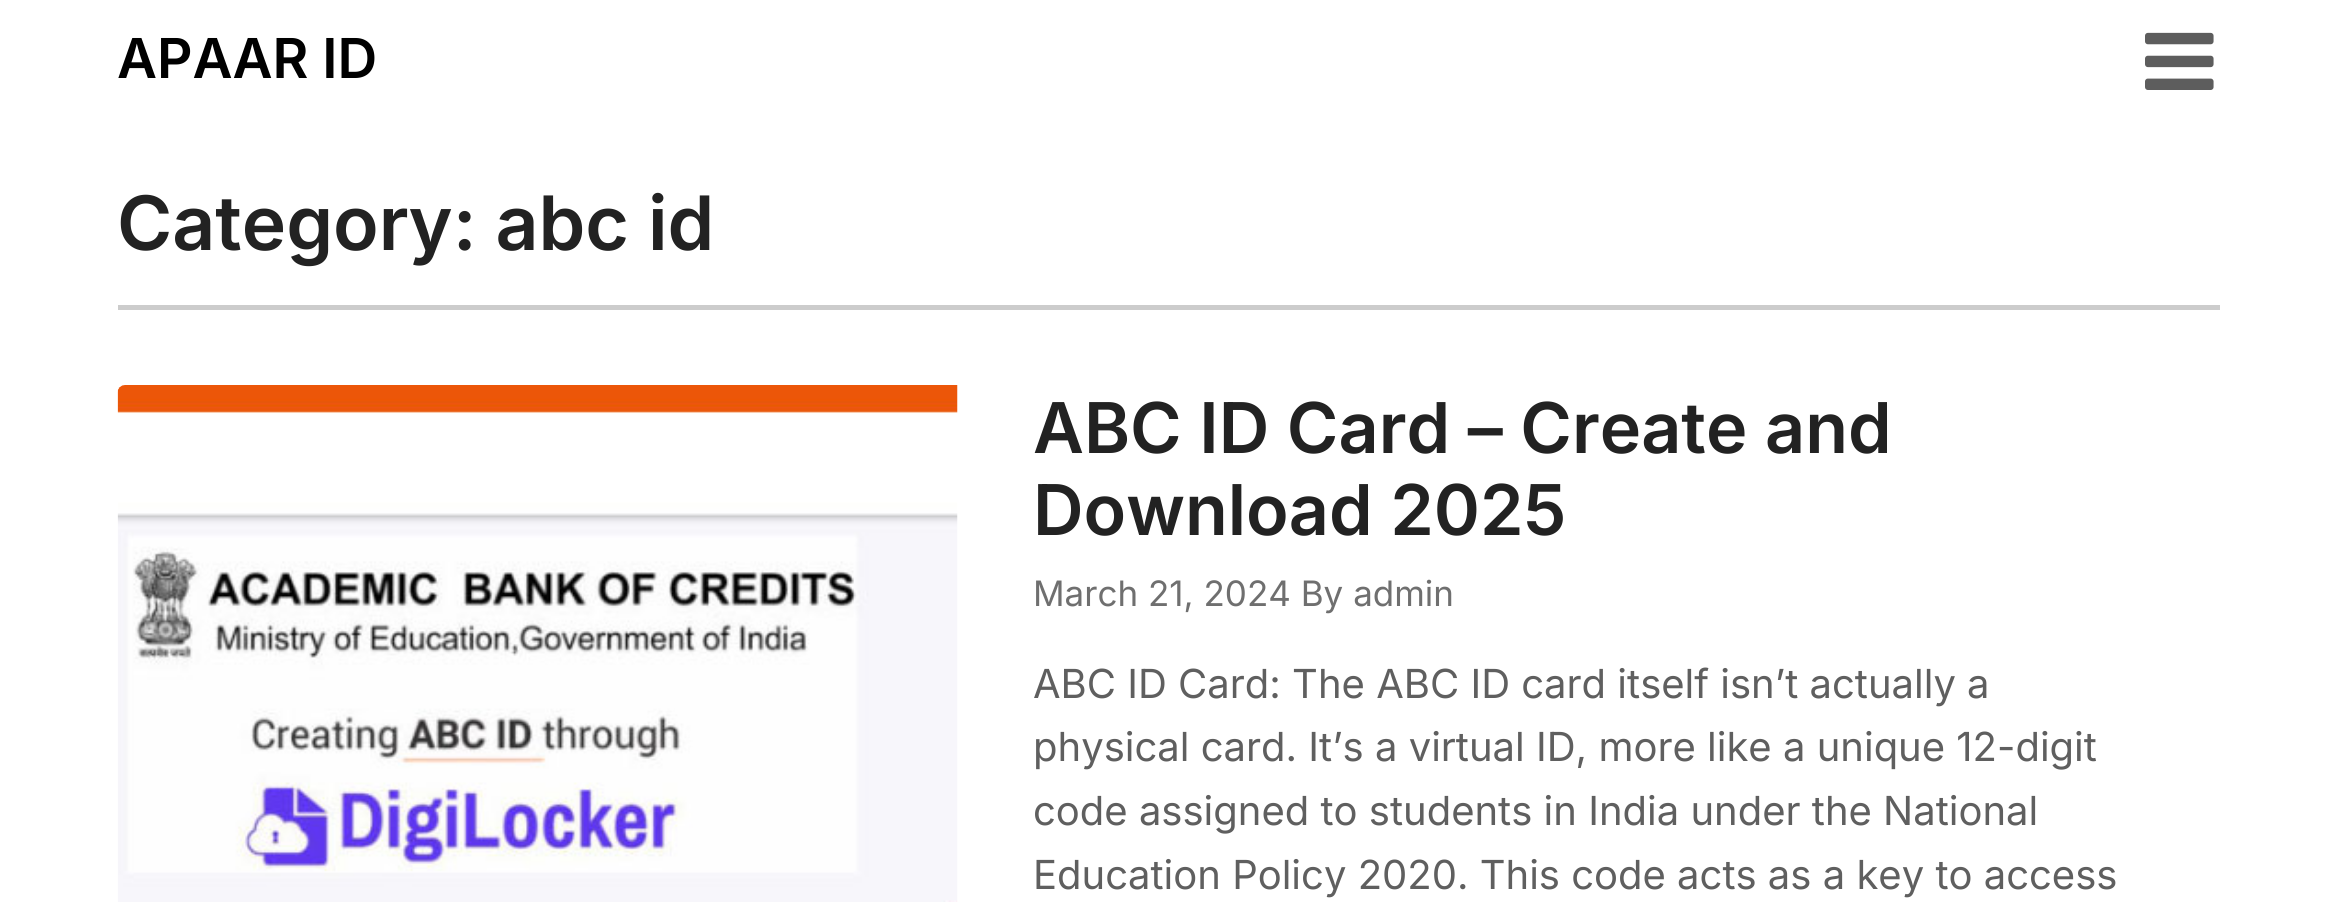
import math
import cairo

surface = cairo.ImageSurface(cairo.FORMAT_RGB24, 2337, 902)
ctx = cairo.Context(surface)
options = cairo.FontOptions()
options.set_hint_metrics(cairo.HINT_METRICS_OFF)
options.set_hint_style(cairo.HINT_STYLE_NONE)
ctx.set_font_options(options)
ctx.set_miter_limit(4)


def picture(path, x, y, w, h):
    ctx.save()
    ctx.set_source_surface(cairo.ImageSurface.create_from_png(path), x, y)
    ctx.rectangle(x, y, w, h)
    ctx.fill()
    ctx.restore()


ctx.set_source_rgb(1, 1, 1)
ctx.paint()
ctx.select_font_face("Inter SemiBold")
ctx.set_font_size(55)
ctx.set_source_rgb(0, 0, 0)
ctx.move_to(117, 78)
ctx.show_text("APAAR ID")
picture("img1.png", 2145, 32, 69, 58)
ctx.set_source_rgb(0.8, 0.8, 0.8)
ctx.rectangle(118, 305, 2102, 5)
ctx.fill()
ctx.set_font_size(75)
ctx.set_source_rgb(0.133, 0.133, 0.133)
ctx.move_to(117, 250)
ctx.show_text("Category: abc id")
picture("img2.png", 117, 385, 841, 517)
ctx.set_font_size(70)
ctx.move_to(1033, 453)
ctx.show_text("ABC ID Card – Create and")
ctx.move_to(1033, 535)
ctx.show_text("Download 2025")
ctx.select_font_face("Inter")
ctx.set_font_size(35)
ctx.set_source_rgb(0.435, 0.435, 0.435)
ctx.move_to(1033, 606)
ctx.show_text("March 21, 2024 By admin")
ctx.set_font_size(40)
ctx.set_source_rgb(0.373, 0.373, 0.373)
ctx.move_to(1033, 698)
ctx.show_text("ABC ID Card: The ABC ID card itself isn’t actually a")
ctx.move_to(1033, 761)
ctx.show_text("physical card. It’s a virtual ID, more like a unique 12-digit")
ctx.move_to(1033, 825)
ctx.show_text("code assigned to students in India under the National")
ctx.move_to(1033, 889)
ctx.show_text("Education Policy 2020. This code acts as a key to access")
surface.write_to_png("page.png")
